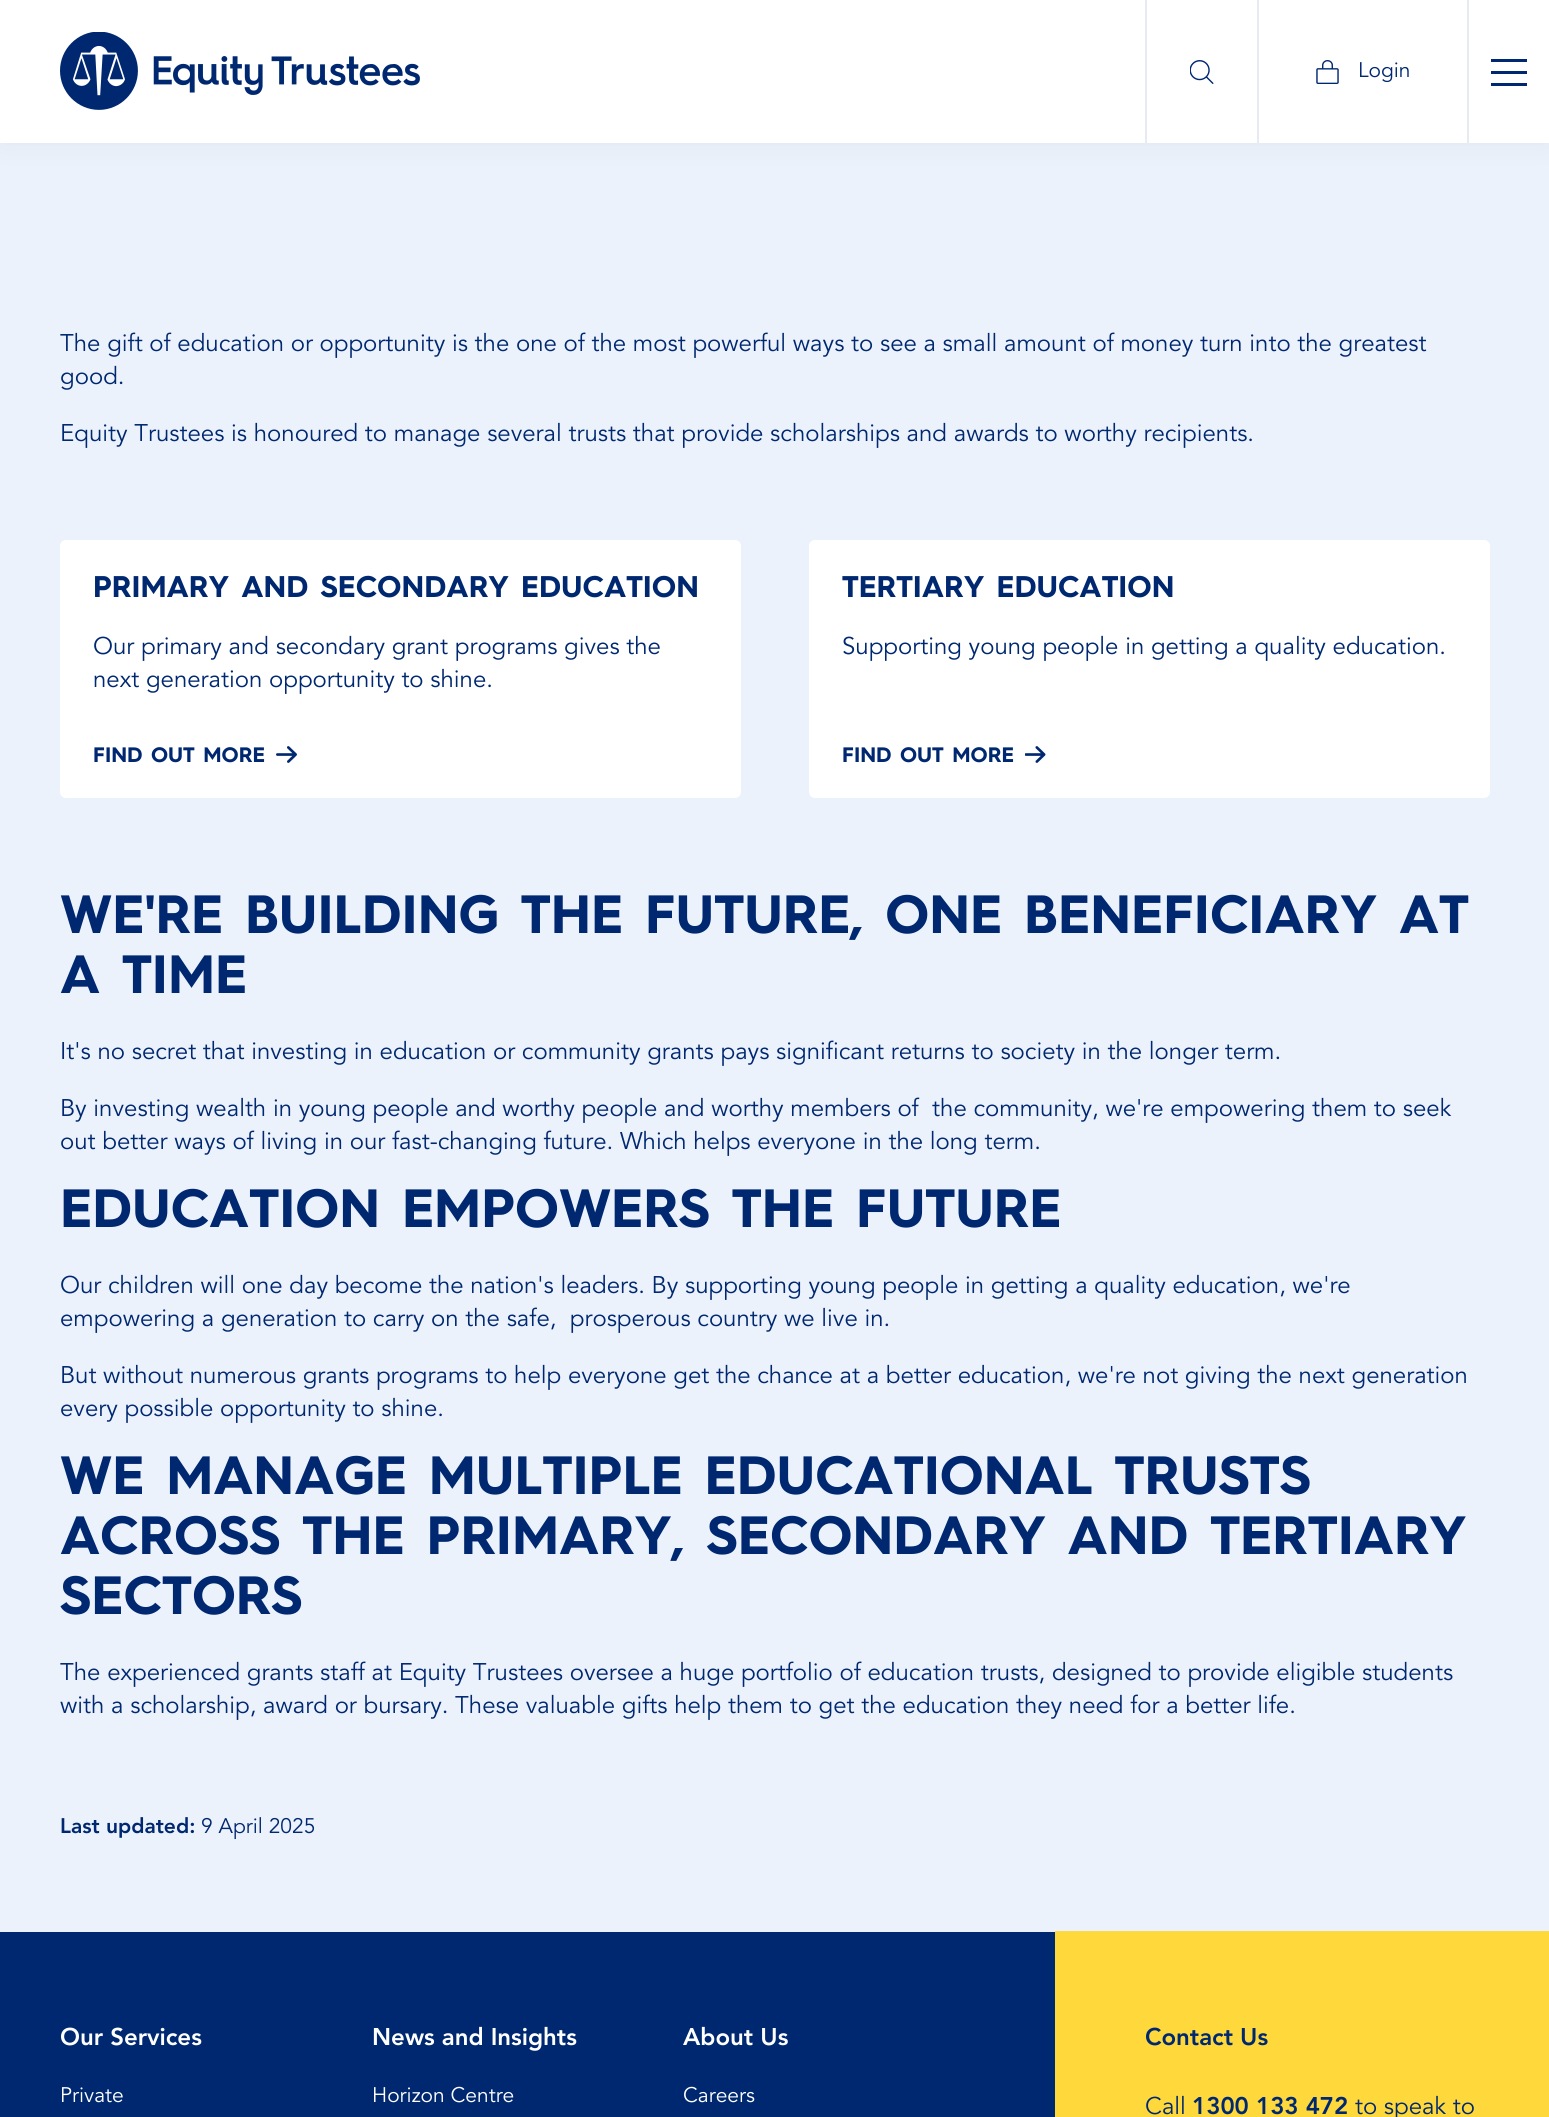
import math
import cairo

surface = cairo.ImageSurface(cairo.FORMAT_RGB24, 1549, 2117)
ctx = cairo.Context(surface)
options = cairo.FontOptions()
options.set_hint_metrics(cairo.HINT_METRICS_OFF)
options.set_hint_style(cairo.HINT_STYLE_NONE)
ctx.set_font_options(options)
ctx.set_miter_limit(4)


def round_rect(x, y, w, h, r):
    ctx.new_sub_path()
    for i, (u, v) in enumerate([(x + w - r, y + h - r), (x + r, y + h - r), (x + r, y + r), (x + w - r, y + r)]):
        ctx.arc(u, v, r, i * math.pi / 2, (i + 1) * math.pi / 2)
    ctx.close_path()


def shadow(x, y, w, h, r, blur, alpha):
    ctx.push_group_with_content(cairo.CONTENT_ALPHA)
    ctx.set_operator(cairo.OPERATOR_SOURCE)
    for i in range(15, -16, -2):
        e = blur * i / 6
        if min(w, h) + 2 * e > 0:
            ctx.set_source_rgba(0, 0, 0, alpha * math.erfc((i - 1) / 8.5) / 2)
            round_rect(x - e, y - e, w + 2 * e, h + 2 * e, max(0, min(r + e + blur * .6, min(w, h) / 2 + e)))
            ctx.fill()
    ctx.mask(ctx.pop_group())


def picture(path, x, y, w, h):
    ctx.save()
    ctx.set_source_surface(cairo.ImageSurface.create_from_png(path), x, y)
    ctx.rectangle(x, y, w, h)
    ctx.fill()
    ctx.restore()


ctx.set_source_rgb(0.925, 0.949, 0.984)
ctx.paint()
ctx.select_font_face("Avenir")
ctx.set_font_size(24)
ctx.set_source_rgb(0, 0.157, 0.443)
ctx.move_to(60, 351)
ctx.show_text("The gift of education or opportunity is the one of the most powerful ways to see a small amount of money turn into the greatest")
ctx.move_to(60, 384)
ctx.show_text("good.")
ctx.move_to(60, 441)
ctx.show_text("Equity Trustees is honoured to manage several trusts that provide scholarships and awards to worthy recipients.")
ctx.set_source_rgb(1, 1, 1)
round_rect(60, 540, 681, 258, 6)
ctx.fill()
ctx.select_font_face("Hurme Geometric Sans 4", cairo.FONT_SLANT_NORMAL, cairo.FONT_WEIGHT_BOLD)
ctx.set_font_size(30)
ctx.set_source_rgb(0, 0.157, 0.443)
ctx.move_to(93, 597)
ctx.show_text("PRIMARY AND SECONDARY EDUCATION")
ctx.select_font_face("Avenir")
ctx.set_font_size(24)
ctx.move_to(93, 654)
ctx.show_text("Our primary and secondary grant programs gives the")
ctx.move_to(93, 687)
ctx.show_text("next generation opportunity to shine.")
ctx.select_font_face("Hurme Geometric Sans 4", cairo.FONT_SLANT_NORMAL, cairo.FONT_WEIGHT_BOLD)
ctx.set_font_size(21)
ctx.move_to(93, 762)
ctx.show_text("FIND OUT MORE")
picture("img4.png", 276, 746, 21, 17)
ctx.set_source_rgb(1, 1, 1)
round_rect(809, 540, 681, 258, 6)
ctx.fill()
ctx.set_font_size(30)
ctx.set_source_rgb(0, 0.157, 0.443)
ctx.move_to(842, 597)
ctx.show_text("TERTIARY EDUCATION")
ctx.select_font_face("Avenir")
ctx.set_font_size(24)
ctx.move_to(842, 654)
ctx.show_text("Supporting young people in getting a quality education.")
ctx.select_font_face("Hurme Geometric Sans 4", cairo.FONT_SLANT_NORMAL, cairo.FONT_WEIGHT_BOLD)
ctx.set_font_size(21)
ctx.move_to(842, 762)
ctx.show_text("FIND OUT MORE")
picture("img5.png", 1025, 746, 21, 17)
ctx.set_font_size(54)
ctx.move_to(60, 933)
ctx.show_text("WE'RE BUILDING THE FUTURE, ONE BENEFICIARY AT")
ctx.move_to(60, 993)
ctx.show_text("A TIME")
ctx.select_font_face("Avenir")
ctx.set_font_size(24)
ctx.move_to(60, 1059)
ctx.show_text("It's no secret that investing in education or community grants pays significant returns to society in the longer term.")
ctx.move_to(60, 1116)
ctx.show_text("By investing wealth in young people and worthy people and worthy members of  the community, we're empowering them to seek")
ctx.move_to(60, 1149)
ctx.show_text("out better ways of living in our fast-changing future. Which helps everyone in the long term.")
ctx.select_font_face("Hurme Geometric Sans 4", cairo.FONT_SLANT_NORMAL, cairo.FONT_WEIGHT_BOLD)
ctx.set_font_size(54)
ctx.move_to(60, 1227)
ctx.show_text("EDUCATION EMPOWERS THE FUTURE")
ctx.select_font_face("Avenir")
ctx.set_font_size(24)
ctx.move_to(60, 1293)
ctx.show_text("Our children will one day become the nation's leaders. By supporting young people in getting a quality education, we're")
ctx.move_to(60, 1326)
ctx.show_text("empowering a generation to carry on the safe,  prosperous country we live in.")
ctx.move_to(60, 1383)
ctx.show_text("But without numerous grants programs to help everyone get the chance at a better education, we're not giving the next generation")
ctx.move_to(60, 1416)
ctx.show_text("every possible opportunity to shine.")
ctx.select_font_face("Hurme Geometric Sans 4", cairo.FONT_SLANT_NORMAL, cairo.FONT_WEIGHT_BOLD)
ctx.set_font_size(54)
ctx.move_to(60, 1494)
ctx.show_text("WE MANAGE MULTIPLE EDUCATIONAL TRUSTS")
ctx.move_to(60, 1554)
ctx.show_text("ACROSS THE PRIMARY, SECONDARY AND TERTIARY")
ctx.move_to(60, 1614)
ctx.show_text("SECTORS")
ctx.select_font_face("Avenir")
ctx.set_font_size(24)
ctx.move_to(60, 1680)
ctx.show_text("The experienced grants staff at Equity Trustees oversee a huge portfolio of education trusts, designed to provide eligible students")
ctx.move_to(60, 1713)
ctx.show_text("with a scholarship, award or bursary. These valuable gifts help them to get the education they need for a better life.")
ctx.select_font_face("Avenir Black")
ctx.set_font_size(21)
ctx.move_to(60, 1833)
ctx.show_text("Last updated:")
ctx.select_font_face("Avenir")
ctx.move_to(201, 1833)
ctx.show_text("9 April 2025")
ctx.rectangle(0, 1932, 1055, 185)
ctx.fill()
ctx.select_font_face("Avenir Black")
ctx.set_font_size(24)
ctx.set_source_rgb(1, 1, 1)
ctx.move_to(60, 2045)
ctx.show_text("Our Services")
ctx.select_font_face("Avenir")
ctx.set_font_size(21)
ctx.move_to(60, 2102)
ctx.show_text("Private")
ctx.select_font_face("Avenir Black")
ctx.set_font_size(24)
ctx.move_to(372, 2045)
ctx.show_text("News and Insights")
ctx.select_font_face("Avenir")
ctx.set_font_size(21)
ctx.move_to(372, 2102)
ctx.show_text("Horizon Centre")
ctx.select_font_face("Avenir Black")
ctx.set_font_size(24)
ctx.move_to(683, 2045)
ctx.show_text("About Us")
ctx.select_font_face("Avenir")
ctx.set_font_size(21)
ctx.move_to(683, 2102)
ctx.show_text("Careers")
ctx.save()
ctx.rectangle(1055, 1931, 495, 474)
ctx.clip()
ctx.rectangle(-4, 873, 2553, 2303)
ctx.set_source_rgb(1, 0.851, 0.231)
ctx.set_line_width(2118)
ctx.stroke()
ctx.restore()
ctx.set_source_rgb(0, 0, 0)
shadow(0, 0, 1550, 143, 0, 15, 0.05)
ctx.set_source_rgb(1, 1, 1)
ctx.rectangle(0, 0, 1549, 143)
ctx.fill()
picture("img1.png", 60, 32, 360, 78)
ctx.set_source_rgb(0.902, 0.918, 0.945)
ctx.rectangle(1145, 0, 2, 143)
ctx.fill()
picture("img2.png", 1190, 60, 24, 24)
ctx.rectangle(1257, 0, 2, 143)
ctx.fill()
picture("img3.png", 1316, 60, 23, 24)
ctx.set_source_rgb(0, 0.157, 0.443)
ctx.move_to(1358, 77)
ctx.show_text("Login")
ctx.set_source_rgb(0.902, 0.918, 0.945)
ctx.rectangle(1467, 0, 2, 143)
ctx.fill()
ctx.set_source_rgb(0, 0.157, 0.443)
ctx.rectangle(1491, 59, 36, 3)
ctx.fill()
ctx.rectangle(1491, 71, 36, 3)
ctx.fill()
ctx.rectangle(1491, 83, 36, 3)
ctx.fill()
ctx.set_source_rgb(1, 0.851, 0.231)
ctx.rectangle(1055, 1932, 435, 185)
ctx.fill()
ctx.select_font_face("Avenir Black")
ctx.set_font_size(24)
ctx.set_source_rgb(0, 0.157, 0.443)
ctx.move_to(1145, 2045)
ctx.show_text("Contact Us")
ctx.select_font_face("Avenir")
ctx.move_to(1145, 2114)
ctx.show_text("Call")
ctx.select_font_face("Avenir Black")
ctx.move_to(1192, 2114)
ctx.show_text("1300 133 472")
ctx.select_font_face("Avenir")
ctx.move_to(1355, 2114)
ctx.show_text("to speak to")
surface.write_to_png("page.png")
